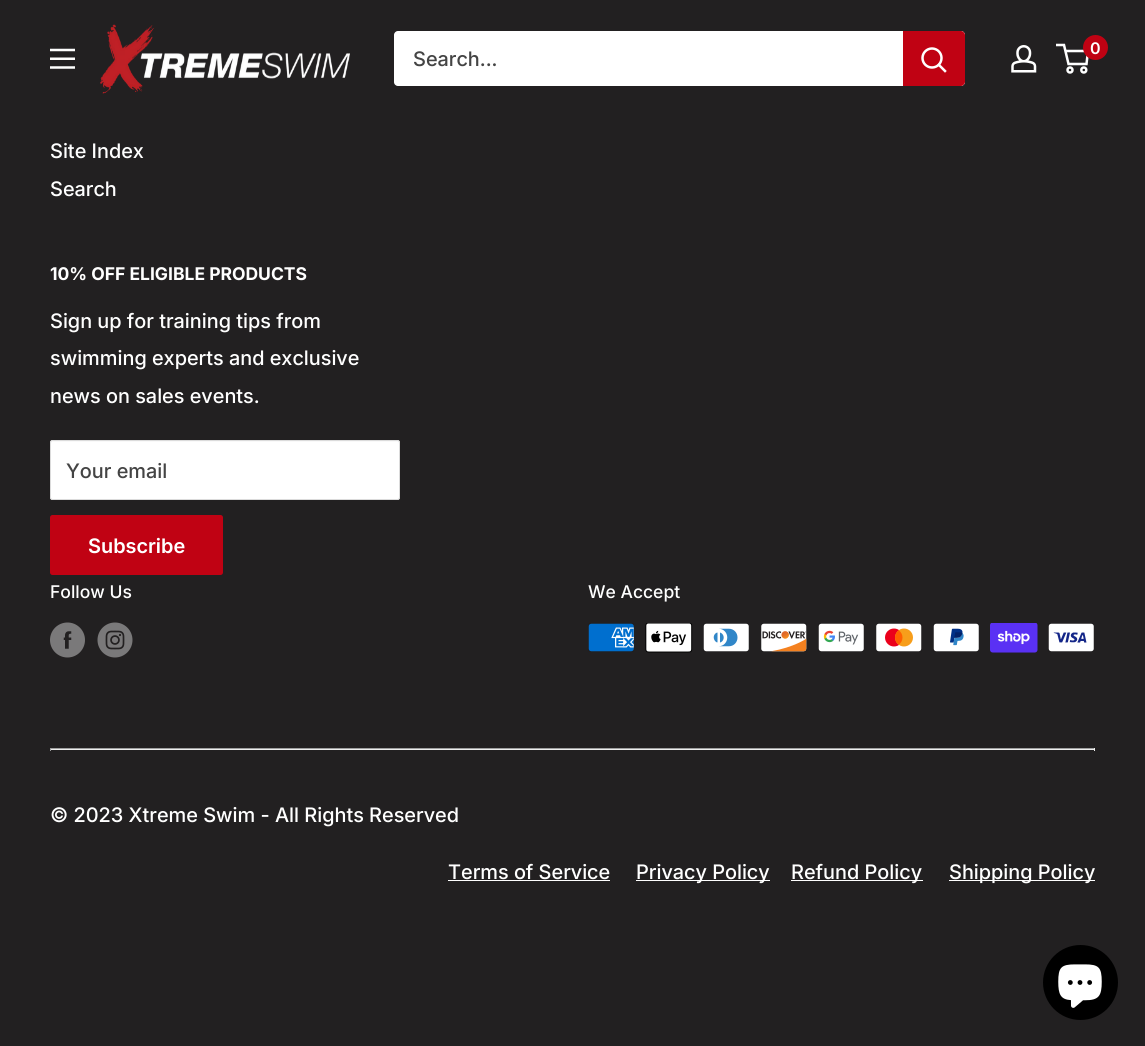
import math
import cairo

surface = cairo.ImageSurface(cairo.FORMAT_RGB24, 1145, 1046)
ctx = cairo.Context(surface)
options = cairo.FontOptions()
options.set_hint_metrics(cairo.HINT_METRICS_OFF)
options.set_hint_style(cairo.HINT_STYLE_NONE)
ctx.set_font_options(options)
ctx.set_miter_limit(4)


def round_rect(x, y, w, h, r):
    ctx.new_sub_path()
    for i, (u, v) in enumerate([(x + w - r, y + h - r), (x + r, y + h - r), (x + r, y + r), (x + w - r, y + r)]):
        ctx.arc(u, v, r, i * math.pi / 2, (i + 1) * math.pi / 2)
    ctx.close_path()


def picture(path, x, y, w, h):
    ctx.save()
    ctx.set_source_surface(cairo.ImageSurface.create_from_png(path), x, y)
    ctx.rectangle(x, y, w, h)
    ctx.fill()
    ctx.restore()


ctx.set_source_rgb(0.133, 0.125, 0.129)
ctx.paint()
picture("img1.png", 50, 48, 25, 21)
picture("img2.png", 100, 24, 250, 70)
ctx.set_source_rgb(1, 1, 1)
round_rect(394, 31, 571, 55, 4)
ctx.fill()
ctx.select_font_face("Inter Medium")
ctx.set_font_size(20)
ctx.set_source_rgb(0.267, 0.267, 0.267)
ctx.move_to(413, 66)
ctx.show_text("Search...")
ctx.set_source_rgb(0.753, 0.008, 0.075)
ctx.new_path()
ctx.move_to(903, 31)
ctx.line_to(961, 31)
ctx.curve_to(963, 31, 965, 33, 965, 35)
ctx.line_to(965, 82)
ctx.curve_to(965, 84, 963, 86, 961, 86)
ctx.line_to(903, 86)
ctx.close_path()
ctx.fill()
ctx.new_path()
ctx.move_to(945, 71)
ctx.line_to(939, 65)
ctx.set_source_rgb(1, 1, 1)
ctx.set_line_width(2.5)
ctx.set_line_cap(cairo.LINE_CAP_SQUARE)
ctx.stroke()
ctx.arc(932, 58, 9.5, 0, 2 * math.pi)
ctx.set_line_cap(cairo.LINE_CAP_BUTT)
ctx.stroke()
picture("img3.png", 1011, 45, 26, 28)
ctx.arc(1070, 70, 2.5, 0, 2 * math.pi)
ctx.stroke()
ctx.arc(1083.8, 70, 2.5, 0, 2 * math.pi)
ctx.stroke()
ctx.new_path()
ctx.move_to(1065.5, 51)
ctx.line_to(1088, 51)
ctx.line_to(1086.5, 64)
ctx.line_to(1068.5, 64)
ctx.line_to(1064, 45)
ctx.line_to(1056, 45)
ctx.stroke()
ctx.set_source_rgb(0.753, 0.008, 0.075)
ctx.arc(1095.5, 47.5, 12.5, 0, 2 * math.pi)
ctx.fill()
ctx.select_font_face("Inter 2 SemiBold")
ctx.set_font_size(16)
ctx.set_source_rgb(1, 1, 1)
ctx.move_to(1090, 54)
ctx.show_text("0")
ctx.select_font_face("Inter Medium")
ctx.set_font_size(20)
ctx.move_to(50, 158)
ctx.show_text("Site Index")
ctx.move_to(50, 196)
ctx.show_text("Search")
ctx.select_font_face("Inter", cairo.FONT_SLANT_NORMAL, cairo.FONT_WEIGHT_BOLD)
ctx.set_font_size(17.5)
ctx.move_to(50, 280)
ctx.show_text("10% OFF ELIGIBLE PRODUCTS")
ctx.select_font_face("Inter Medium")
ctx.set_font_size(20)
ctx.move_to(50, 328)
ctx.show_text("Sign up for training tips from")
ctx.move_to(50, 365)
ctx.show_text("swimming experts and exclusive")
ctx.move_to(50, 403)
ctx.show_text("news on sales events.")
round_rect(50, 440, 350, 60, 2.5)
ctx.fill()
ctx.set_source_rgb(0.976, 0.976, 0.976)
ctx.new_path()
ctx.move_to(52, 442)
ctx.line_to(398, 442)
ctx.line_to(399, 444)
ctx.line_to(399, 441)
ctx.line_to(52, 441)
ctx.curve_to(51, 441, 51, 443, 51, 444)
ctx.close_path()
ctx.fill()
round_rect(50.5, 440.5, 349, 59, 2)
ctx.set_source_rgb(0.859, 0.859, 0.859)
ctx.set_line_width(1)
ctx.stroke()
ctx.set_source_rgb(0.267, 0.267, 0.267)
ctx.move_to(66, 478)
ctx.show_text("Your email")
ctx.set_source_rgb(0.753, 0.008, 0.075)
round_rect(50, 515, 173, 60, 2.5)
ctx.fill()
ctx.select_font_face("Inter SemiBold")
ctx.set_source_rgb(1, 1, 1)
ctx.move_to(88, 553)
ctx.show_text("Subscribe")
ctx.select_font_face("Inter 2 Medium")
ctx.set_font_size(17.5)
ctx.move_to(50, 598)
ctx.show_text("Follow Us")
picture("img4.png", 50, 622, 35, 36)
picture("img5.png", 97, 622, 36, 36)
ctx.move_to(588, 598)
ctx.show_text("We Accept")
picture("img6.png", 588, 623, 46, 29)
picture("img7.png", 645, 623, 48, 30)
picture("img8.png", 703, 623, 46, 29)
picture("img9.png", 761, 623, 46, 29)
picture("img10.png", 818, 623, 46, 29)
picture("img11.png", 876, 623, 46, 29)
picture("img12.png", 933, 623, 46, 29)
picture("img13.png", 990, 623, 48, 30)
picture("img14.png", 1048, 623, 46, 29)
ctx.set_source_rgb(0.624, 0.624, 0.624)
ctx.rectangle(50, 748, 1045, 1)
ctx.fill()
ctx.set_source_rgb(0.933, 0.933, 0.933)
ctx.rectangle(1094, 748, 1, 3)
ctx.fill()
ctx.rectangle(50, 749, 1045, 1)
ctx.fill()
ctx.set_source_rgb(0.624, 0.624, 0.624)
ctx.rectangle(50, 748, 1, 3)
ctx.fill()
ctx.select_font_face("Inter Medium")
ctx.set_font_size(20)
ctx.set_source_rgb(1, 1, 1)
ctx.move_to(50, 822)
ctx.show_text("© 2023 Xtreme Swim - All Rights Reserved")
ctx.move_to(448, 879)
ctx.show_text("Terms of Service")
ctx.rectangle(448, 880, 162, 1)
ctx.fill()
ctx.rectangle(636, 880, 134, 1)
ctx.fill()
ctx.move_to(636, 879)
ctx.show_text("Privacy Policy")
ctx.rectangle(791, 880, 132, 1)
ctx.fill()
ctx.move_to(791, 879)
ctx.show_text("Refund Policy")
ctx.rectangle(949, 880, 146, 1)
ctx.fill()
ctx.move_to(949, 879)
ctx.show_text("Shipping Policy")
ctx.set_source_rgb(0, 0, 0)
ctx.new_path()
ctx.arc(1080.5, 982.5, 37.5, 0, 2 * math.pi)
ctx.fill()
picture("img15.png", 1058, 964, 44, 44)
surface.write_to_png("page.png")
